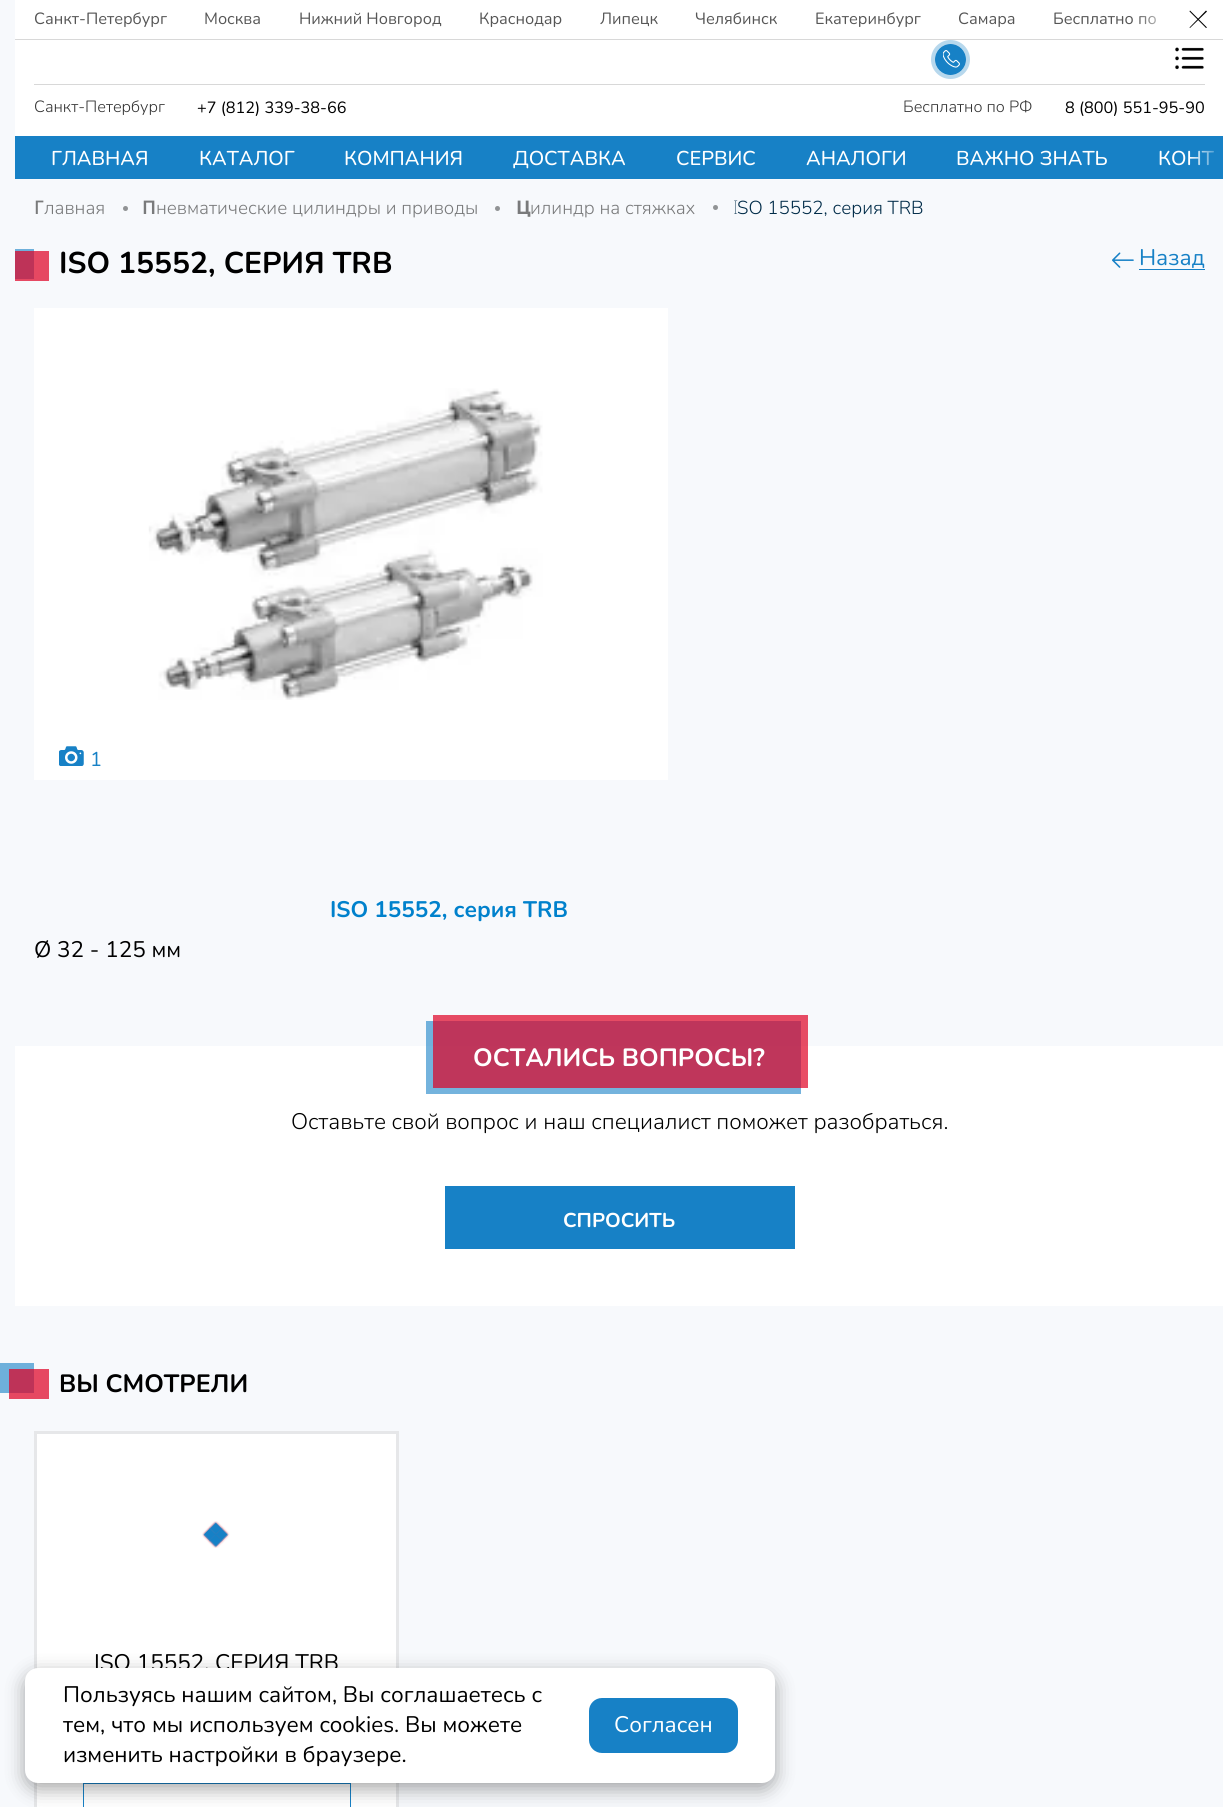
import math
import cairo

surface = cairo.ImageSurface(cairo.FORMAT_RGB24, 1223, 1807)
ctx = cairo.Context(surface)
options = cairo.FontOptions()
options.set_hint_metrics(cairo.HINT_METRICS_OFF)
options.set_hint_style(cairo.HINT_STYLE_NONE)
ctx.set_font_options(options)
ctx.set_miter_limit(4)


def round_rect(x, y, w, h, r):
    ctx.new_sub_path()
    for i, (u, v) in enumerate([(x + w - r, y + h - r), (x + r, y + h - r), (x + r, y + r), (x + w - r, y + r)]):
        ctx.arc(u, v, r, i * math.pi / 2, (i + 1) * math.pi / 2)
    ctx.close_path()


def shadow(x, y, w, h, r, blur, alpha):
    ctx.push_group_with_content(cairo.CONTENT_ALPHA)
    ctx.set_operator(cairo.OPERATOR_SOURCE)
    for i in range(15, -16, -2):
        e = blur * i / 6
        if min(w, h) + 2 * e > 0:
            ctx.set_source_rgba(0, 0, 0, alpha * math.erfc((i - 1) / 8.5) / 2)
            round_rect(x - e, y - e, w + 2 * e, h + 2 * e, max(0, min(r + e + blur * .6, min(w, h) / 2 + e)))
            ctx.fill()
    ctx.mask(ctx.pop_group())


def picture(path, x, y, w, h):
    ctx.save()
    ctx.set_source_surface(cairo.ImageSurface.create_from_png(path), x, y)
    ctx.rectangle(x, y, w, h)
    ctx.fill()
    ctx.restore()


ctx.set_source_rgb(0.965, 0.976, 0.988)
ctx.paint()
ctx.set_source_rgb(0.902, 0.282, 0.384)
ctx.rectangle(9, 1369, 40, 30)
ctx.fill()
ctx.set_source_rgb(0.902, 0.294, 0.392)
ctx.rectangle(433, 1015, 375, 31)
ctx.fill()
ctx.set_source_rgb(0.439, 0.694, 0.863)
ctx.rectangle(426, 1021, 7, 25)
ctx.fill()
ctx.set_source_rgb(0.745, 0.208, 0.357)
ctx.rectangle(433, 1021, 368, 25)
ctx.fill()
ctx.set_source_rgb(0.902, 0.282, 0.384)
ctx.rectangle(15, 251, 34, 30)
ctx.fill()
ctx.set_source_rgb(1, 1, 1)
ctx.rectangle(15, 0, 1208, 136)
ctx.fill()
ctx.set_source_rgb(0.847, 0.847, 0.847)
ctx.rectangle(15, 39, 1208, 1)
ctx.fill()
ctx.select_font_face("Nunito")
ctx.set_font_size(16.25)
ctx.set_source_rgb(0.337, 0.337, 0.337)
ctx.move_to(34, 24)
ctx.show_text("Санкт-Петербург")
ctx.move_to(204, 24)
ctx.show_text("Москва")
ctx.move_to(299, 24)
ctx.show_text("Нижний Новгород")
ctx.move_to(479, 24)
ctx.show_text("Краснодар")
ctx.move_to(600, 24)
ctx.show_text("Липецк")
ctx.move_to(695, 24)
ctx.show_text("Челябинск")
ctx.move_to(815, 24)
ctx.show_text("Екатеринбург")
ctx.move_to(958, 24)
ctx.show_text("Самара")
ctx.move_to(1053, 24)
ctx.show_text("Бесплатно по")
ctx.set_source_rgb(0, 0, 0)
ctx.new_path()
ctx.move_to(1206, 10.5)
ctx.line_to(1207, 11.5)
ctx.line_to(1190, 28)
ctx.line_to(1189.5, 27.5)
ctx.close_path()
ctx.fill()
ctx.new_path()
ctx.move_to(1189.5, 11.5)
ctx.line_to(1190, 10.5)
ctx.line_to(1207, 27.5)
ctx.line_to(1206, 28)
ctx.close_path()
ctx.fill()
gradient = cairo.LinearGradient(1136, 18, 1174, 17)
gradient.add_color_stop_rgba(0, 1, 1, 1, 0)
gradient.add_color_stop_rgba(1, 1, 1, 1, 1)
ctx.set_source(gradient)
ctx.rectangle(1139, 16, 18, 9)
ctx.fill()
ctx.arc(950.5, 59.5, 17.5, 0, 2 * math.pi)
ctx.set_source_rgb(0.718, 0.847, 0.929)
ctx.set_line_width(4)
ctx.stroke()
ctx.set_source_rgb(0.09, 0.506, 0.776)
ctx.arc(950.5, 59.5, 15.5, 0, 2 * math.pi)
ctx.fill()
picture("img1.png", 943, 50, 17, 18)
picture("img2.png", 1175, 47, 29, 23)
ctx.set_source_rgb(0.847, 0.847, 0.847)
ctx.rectangle(34, 84, 1171, 1)
ctx.fill()
ctx.select_font_face("Nunito Light")
ctx.set_source_rgb(0.2, 0.2, 0.2)
ctx.move_to(34, 112)
ctx.show_text("Санкт-Петербург")
ctx.select_font_face("Nunito")
ctx.set_source_rgb(0, 0, 0)
ctx.move_to(197, 113)
ctx.show_text("+7 (812) 339-38-66")
ctx.select_font_face("Nunito Light")
ctx.set_source_rgb(0.2, 0.2, 0.2)
ctx.move_to(903, 112)
ctx.show_text("Бесплатно по РФ")
ctx.select_font_face("Nunito")
ctx.set_source_rgb(0, 0, 0)
ctx.move_to(1065, 113)
ctx.show_text("8 (800) 551-95-90")
ctx.set_source_rgb(0.09, 0.506, 0.776)
ctx.rectangle(15, 136, 1208, 43)
ctx.fill()
ctx.select_font_face("Nunito Medium")
ctx.set_font_size(20)
ctx.set_source_rgb(1, 1, 1)
ctx.move_to(51, 165)
ctx.show_text("ГЛАВНАЯ")
ctx.move_to(199, 165)
ctx.show_text("КАТАЛОГ")
ctx.move_to(344, 165)
ctx.show_text("КОМПАНИЯ")
ctx.move_to(513, 165)
ctx.show_text("ДОСТАВКА")
ctx.move_to(676, 165)
ctx.show_text("СЕРВИС")
ctx.move_to(806, 165)
ctx.show_text("АНАЛОГИ")
ctx.move_to(956, 165)
ctx.show_text("ВАЖНО ЗНАТЬ")
ctx.move_to(1158, 165)
ctx.show_text("КОНТ")
gradient = cairo.LinearGradient(1190, 158, 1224, 158)
gradient.add_color_stop_rgba(0.01, 0.09, 0.506, 0.776, 0)
gradient.add_color_stop_rgba(0.98, 0.09, 0.506, 0.776, 1)
ctx.set_source(gradient)
ctx.rectangle(1191, 150, 24, 16)
ctx.fill()
ctx.select_font_face("Noto Sans Medium")
ctx.set_font_size(18.75)
ctx.set_source_rgb(0.475, 0.478, 0.482)
ctx.move_to(34, 214)
ctx.show_text("Г")
ctx.select_font_face("Nunito Light")
ctx.move_to(44, 214)
ctx.show_text("лавная")
ctx.set_source_rgb(0.569, 0.576, 0.584)
ctx.new_path()
ctx.arc(125.5, 208.5, 2.5, 0, 2 * math.pi)
ctx.fill()
ctx.select_font_face("Noto Sans SemiBold")
ctx.set_source_rgb(0.475, 0.478, 0.482)
ctx.move_to(142, 214)
ctx.show_text("П")
ctx.select_font_face("Nunito Light")
ctx.move_to(156, 214)
ctx.show_text("невматические цилиндры и приводы")
ctx.set_source_rgb(0.569, 0.576, 0.584)
ctx.new_path()
ctx.arc(497.5, 208.5, 2.5, 0, 2 * math.pi)
ctx.fill()
ctx.select_font_face("Noto Sans", cairo.FONT_SLANT_NORMAL, cairo.FONT_WEIGHT_BOLD)
ctx.set_source_rgb(0.475, 0.478, 0.482)
ctx.move_to(516, 214)
ctx.show_text("Ц")
ctx.select_font_face("Nunito Light")
ctx.move_to(530, 214)
ctx.show_text("илиндр на стяжках")
ctx.set_source_rgb(0.569, 0.576, 0.584)
ctx.new_path()
ctx.arc(715.5, 207.5, 2.5, 0, 2 * math.pi)
ctx.fill()
ctx.select_font_face("Noto Sans Thin")
ctx.set_source_rgb(0, 0.169, 0.282)
ctx.move_to(733, 214)
ctx.show_text("I")
ctx.select_font_face("Nunito Light")
ctx.move_to(737, 214)
ctx.show_text("SO 15552, серия TRB")
picture("img3.png", 1112, 252, 22, 16)
ctx.set_source_rgb(0.09, 0.506, 0.776)
ctx.rectangle(1139, 269, 66, 1)
ctx.fill()
ctx.select_font_face("Nunito")
ctx.set_font_size(22.5)
ctx.move_to(1139, 265)
ctx.show_text("Назад")
ctx.set_source_rgb(1, 1, 1)
ctx.rectangle(34, 308, 634, 472)
ctx.fill()
picture("img4.png", 148, 388, 395, 312)
picture("img5.png", 59, 746, 25, 20)
ctx.set_font_size(20)
ctx.set_source_rgb(0.09, 0.506, 0.776)
ctx.move_to(90, 766)
ctx.show_text("1")
ctx.set_source_rgb(0.431, 0.69, 0.859)
ctx.rectangle(15, 249, 19, 2)
ctx.fill()
ctx.set_source_rgb(0.745, 0.2, 0.345)
ctx.rectangle(15, 251, 19, 28)
ctx.fill()
ctx.select_font_face("Nunito", cairo.FONT_SLANT_NORMAL, cairo.FONT_WEIGHT_BOLD)
ctx.set_font_size(30)
ctx.set_source_rgb(0, 0, 0)
ctx.move_to(59, 273)
ctx.show_text("ISO 15552, СЕРИЯ TRB")
ctx.set_font_size(22.5)
ctx.set_source_rgb(0, 0.506, 0.8)
ctx.move_to(330, 917)
ctx.show_text("ISO 15552, серия TRB")
ctx.select_font_face("Nunito")
ctx.set_source_rgb(0, 0, 0)
ctx.move_to(34, 957)
ctx.show_text("Ø 32 - 125 мм")
ctx.set_source_rgb(1, 1, 1)
ctx.rectangle(15, 1046, 1208, 260)
ctx.fill()
ctx.set_source_rgb(0.914, 0.302, 0.396)
ctx.rectangle(801, 1046, 7, 42)
ctx.fill()
ctx.set_source_rgb(0.455, 0.702, 0.867)
ctx.rectangle(426, 1046, 375, 48)
ctx.fill()
ctx.set_source_rgb(0.749, 0.212, 0.357)
ctx.rectangle(433, 1046, 368, 42)
ctx.fill()
ctx.select_font_face("Nunito", cairo.FONT_SLANT_NORMAL, cairo.FONT_WEIGHT_BOLD)
ctx.set_font_size(25)
ctx.set_source_rgb(1, 1, 1)
ctx.move_to(473, 1066)
ctx.show_text("ОСТАЛИСЬ ВОПРОСЫ?")
ctx.select_font_face("Nunito Light")
ctx.set_font_size(22.5)
ctx.set_source_rgb(0, 0, 0)
ctx.move_to(291, 1129)
ctx.show_text("Оставьте свой вопрос и наш специалист поможет разобраться.")
ctx.set_source_rgb(0.09, 0.506, 0.776)
ctx.rectangle(445, 1186, 350, 63)
ctx.fill()
ctx.select_font_face("Nunito", cairo.FONT_SLANT_NORMAL, cairo.FONT_WEIGHT_BOLD)
ctx.set_font_size(20)
ctx.set_source_rgb(1, 1, 1)
ctx.move_to(563, 1227)
ctx.show_text("СПРОСИТЬ")
ctx.set_source_rgb(0.431, 0.69, 0.859)
ctx.rectangle(0, 1363, 34, 30)
ctx.fill()
ctx.set_source_rgb(0.745, 0.2, 0.345)
ctx.rectangle(9, 1369, 25, 24)
ctx.fill()
ctx.set_font_size(25)
ctx.set_source_rgb(0, 0, 0)
ctx.move_to(59, 1392)
ctx.show_text("ВЫ СМОТРЕЛИ")
ctx.set_source_rgb(1, 1, 1)
ctx.rectangle(35.5, 1432.5, 362, 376)
ctx.fill_preserve()
ctx.set_source_rgb(0.902, 0.906, 0.914)
ctx.set_line_width(3)
ctx.stroke()
picture("img6.png", 202, 1521, 28, 27)
ctx.select_font_face("Nunito")
ctx.set_font_size(22.5)
ctx.set_source_rgb(0, 0, 0)
ctx.move_to(94, 1670)
ctx.show_text("ISO 15552, СЕРИЯ TRB")
ctx.rectangle(83.5, 1783.5, 267, 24)
ctx.set_source_rgb(0.09, 0.506, 0.776)
ctx.set_line_width(1)
ctx.stroke()
ctx.set_source_rgb(0, 0, 0)
shadow(25, 1674, 750, 115, 13, 9.5, 0.35)
ctx.set_source_rgb(1, 1, 1)
round_rect(25, 1668, 750, 115, 13)
ctx.fill()
ctx.set_source_rgb(0, 0, 0)
ctx.move_to(63, 1702)
ctx.show_text("Пользуясь нашим сайтом, Вы соглашаетесь с")
ctx.move_to(63, 1732)
ctx.show_text("тем, что мы используем cookies. Вы можете")
ctx.move_to(63, 1762)
ctx.show_text("изменить настройки в браузере.")
ctx.set_source_rgb(0.09, 0.506, 0.776)
round_rect(589, 1698, 149, 55, 13)
ctx.fill()
ctx.set_source_rgb(1, 1, 1)
ctx.move_to(614, 1732)
ctx.show_text("Согласен")
surface.write_to_png("page.png")
